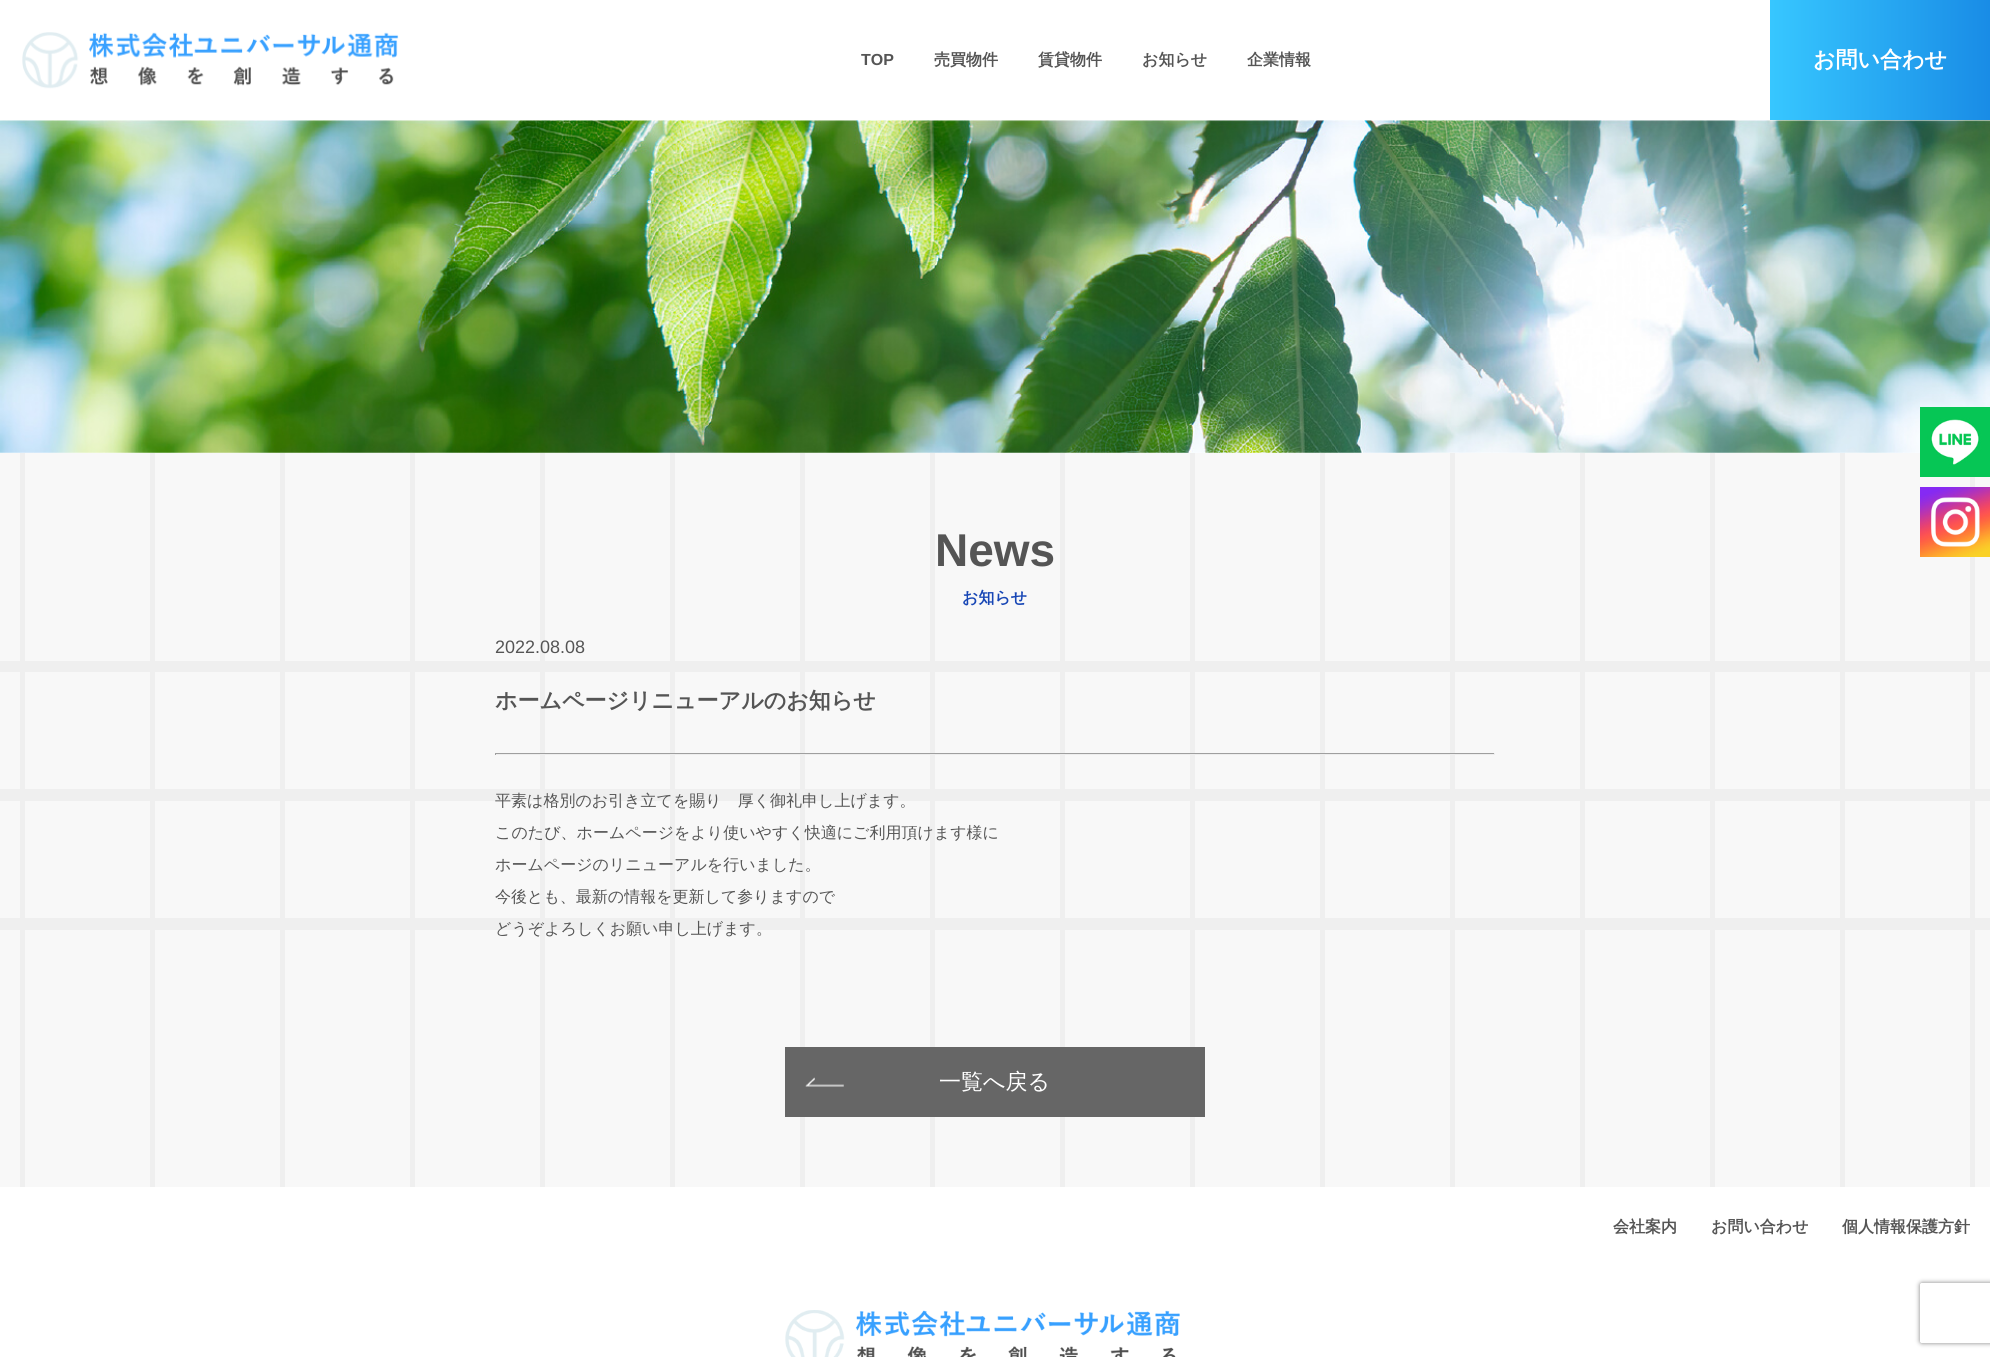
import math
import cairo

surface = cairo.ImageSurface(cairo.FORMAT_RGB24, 1990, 1357)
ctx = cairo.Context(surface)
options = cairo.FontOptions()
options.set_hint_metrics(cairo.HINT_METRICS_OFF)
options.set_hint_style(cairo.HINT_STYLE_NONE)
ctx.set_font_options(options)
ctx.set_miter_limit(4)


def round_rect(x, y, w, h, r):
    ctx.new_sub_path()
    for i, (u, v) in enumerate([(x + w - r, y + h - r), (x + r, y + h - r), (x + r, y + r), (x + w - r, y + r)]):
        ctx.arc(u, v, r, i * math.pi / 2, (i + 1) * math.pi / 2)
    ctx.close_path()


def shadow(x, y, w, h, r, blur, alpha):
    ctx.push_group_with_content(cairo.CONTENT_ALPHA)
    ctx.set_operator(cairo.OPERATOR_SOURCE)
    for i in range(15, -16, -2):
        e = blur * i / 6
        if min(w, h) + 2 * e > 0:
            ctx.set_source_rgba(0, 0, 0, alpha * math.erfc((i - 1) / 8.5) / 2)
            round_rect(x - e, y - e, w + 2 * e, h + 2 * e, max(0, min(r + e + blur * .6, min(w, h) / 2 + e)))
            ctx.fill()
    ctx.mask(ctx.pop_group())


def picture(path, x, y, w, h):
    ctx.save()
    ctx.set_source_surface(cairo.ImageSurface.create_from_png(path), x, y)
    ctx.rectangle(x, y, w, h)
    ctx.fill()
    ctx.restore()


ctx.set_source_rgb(1, 1, 1)
ctx.paint()
picture("img1.png", 22, 32, 377, 57)
ctx.select_font_face("Liberation Sans", cairo.FONT_SLANT_NORMAL, cairo.FONT_WEIGHT_BOLD)
ctx.set_font_size(16)
ctx.set_source_rgb(0.333, 0.333, 0.333)
ctx.move_to(861, 65)
ctx.show_text("TOP")
ctx.select_font_face("WenQuanYi Zen Hei", cairo.FONT_SLANT_NORMAL, cairo.FONT_WEIGHT_BOLD)
ctx.move_to(934, 65)
ctx.show_text("売買物件")
ctx.move_to(1038, 65)
ctx.show_text("賃貸物件")
ctx.move_to(1142, 65)
ctx.show_text("お知らせ")
ctx.move_to(1247, 65)
ctx.show_text("企業情報")
gradient = cairo.LinearGradient(1770, 60, 1990, 60)
gradient.add_color_stop_rgba(0, 0.216, 0.78, 1, 1)
gradient.add_color_stop_rgba(1, 0.098, 0.549, 0.902, 1)
ctx.set_source(gradient)
ctx.rectangle(1770, 0, 220, 120)
ctx.fill()
ctx.set_font_size(22)
ctx.set_source_rgb(1, 1, 1)
ctx.move_to(1813, 67)
ctx.show_text("お問い合わせ")
gradient = cairo.LinearGradient(995, 1187, 995, 17)
gradient.add_color_stop_rgba(0, 0.937, 0.937, 0.937, 1)
gradient.add_color_stop_rgba(0, 0.973, 0.973, 0.973, 1)
gradient.add_color_stop_rgba(0.11, 0.973, 0.973, 0.973, 1)
gradient.add_color_stop_rgba(0.11, 0.937, 0.937, 0.937, 1)
gradient.add_color_stop_rgba(0.11, 0.973, 0.973, 0.973, 1)
gradient.add_color_stop_rgba(0.22, 0.973, 0.973, 0.973, 1)
gradient.add_color_stop_rgba(0.22, 0.937, 0.937, 0.937, 1)
gradient.add_color_stop_rgba(0.23, 0.937, 0.937, 0.937, 1)
gradient.add_color_stop_rgba(0.23, 0.973, 0.973, 0.973, 1)
gradient.add_color_stop_rgba(0.33, 0.973, 0.973, 0.973, 1)
gradient.add_color_stop_rgba(0.33, 0.937, 0.937, 0.937, 1)
gradient.add_color_stop_rgba(0.34, 0.937, 0.937, 0.937, 1)
gradient.add_color_stop_rgba(0.34, 0.973, 0.973, 0.973, 1)
gradient.add_color_stop_rgba(0.44, 0.973, 0.973, 0.973, 1)
gradient.add_color_stop_rgba(0.44, 0.937, 0.937, 0.937, 1)
gradient.add_color_stop_rgba(0.45, 0.937, 0.937, 0.937, 1)
gradient.add_color_stop_rgba(0.45, 0.973, 0.973, 0.973, 1)
gradient.add_color_stop_rgba(0.56, 0.973, 0.973, 0.973, 1)
gradient.add_color_stop_rgba(0.56, 0.937, 0.937, 0.937, 1)
gradient.add_color_stop_rgba(0.56, 0.973, 0.973, 0.973, 1)
gradient.add_color_stop_rgba(0.67, 0.973, 0.973, 0.973, 1)
gradient.add_color_stop_rgba(0.67, 0.937, 0.937, 0.937, 1)
gradient.add_color_stop_rgba(0.67, 0.973, 0.973, 0.973, 1)
gradient.add_color_stop_rgba(0.78, 0.973, 0.973, 0.973, 1)
gradient.add_color_stop_rgba(0.78, 0.937, 0.937, 0.937, 1)
gradient.add_color_stop_rgba(0.78, 0.973, 0.973, 0.973, 1)
gradient.add_color_stop_rgba(0.89, 0.973, 0.973, 0.973, 1)
gradient.add_color_stop_rgba(0.89, 0.937, 0.937, 0.937, 1)
gradient.add_color_stop_rgba(0.89, 0.973, 0.973, 0.973, 1)
gradient.add_color_stop_rgba(1, 0.973, 0.973, 0.973, 1)
ctx.set_source(gradient)
ctx.rectangle(0, 453, 1990, 734)
ctx.fill()
picture("img4.png", 0, 120, 1990, 333)
picture("img2.png", 1920, 407, 70, 70)
gradient = cairo.LinearGradient(1970, 654, 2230, 654)
gradient.add_color_stop_rgba(0, 0.937, 0.937, 0.937, 1)
gradient.add_color_stop_rgba(0.02, 0.937, 0.937, 0.937, 1)
gradient.add_color_stop_rgba(0.02, 0.937, 0.937, 0.937, 0)
gradient.add_color_stop_rgba(0.5, 0.937, 0.937, 0.937, 0)
gradient.add_color_stop_rgba(0.5, 0.937, 0.937, 0.937, 1)
gradient.add_color_stop_rgba(0.52, 0.937, 0.937, 0.937, 1)
gradient.add_color_stop_rgba(0.52, 0.937, 0.937, 0.937, 0)
gradient.add_color_stop_rgba(1, 0, 0, 0, 0)
ctx.set_source(gradient)
ctx.rectangle(1970, 477, 5, 710)
ctx.fill()
picture("img3.png", 1920, 487, 70, 70)
gradient = cairo.LinearGradient(20, 654, 280, 654)
gradient.add_color_stop_rgba(0, 0.937, 0.937, 0.937, 1)
gradient.add_color_stop_rgba(0.02, 0.937, 0.937, 0.937, 1)
gradient.add_color_stop_rgba(0.02, 0.937, 0.937, 0.937, 0)
gradient.add_color_stop_rgba(0.5, 0.937, 0.937, 0.937, 0)
gradient.add_color_stop_rgba(0.5, 0.937, 0.937, 0.937, 1)
gradient.add_color_stop_rgba(0.52, 0.937, 0.937, 0.937, 1)
gradient.add_color_stop_rgba(0.52, 0.937, 0.937, 0.937, 0)
gradient.add_color_stop_rgba(1, 0, 0, 0, 0)
ctx.set_source(gradient)
ctx.rectangle(20, 453, 5, 734)
ctx.fill()
gradient = cairo.LinearGradient(150, 654, 410, 654)
gradient.add_color_stop_rgba(0, 0.937, 0.937, 0.937, 1)
gradient.add_color_stop_rgba(0.02, 0.937, 0.937, 0.937, 1)
gradient.add_color_stop_rgba(0.02, 0.937, 0.937, 0.937, 0)
gradient.add_color_stop_rgba(0.5, 0.937, 0.937, 0.937, 0)
gradient.add_color_stop_rgba(0.5, 0.937, 0.937, 0.937, 1)
gradient.add_color_stop_rgba(0.52, 0.937, 0.937, 0.937, 1)
gradient.add_color_stop_rgba(0.52, 0.937, 0.937, 0.937, 0)
gradient.add_color_stop_rgba(1, 0, 0, 0, 0)
ctx.set_source(gradient)
ctx.rectangle(150, 453, 5, 734)
ctx.fill()
gradient = cairo.LinearGradient(280, 654, 540, 654)
gradient.add_color_stop_rgba(0, 0.937, 0.937, 0.937, 1)
gradient.add_color_stop_rgba(0.02, 0.937, 0.937, 0.937, 1)
gradient.add_color_stop_rgba(0.02, 0.937, 0.937, 0.937, 0)
gradient.add_color_stop_rgba(0.5, 0.937, 0.937, 0.937, 0)
gradient.add_color_stop_rgba(0.5, 0.937, 0.937, 0.937, 1)
gradient.add_color_stop_rgba(0.52, 0.937, 0.937, 0.937, 1)
gradient.add_color_stop_rgba(0.52, 0.937, 0.937, 0.937, 0)
gradient.add_color_stop_rgba(1, 0, 0, 0, 0)
ctx.set_source(gradient)
ctx.rectangle(280, 453, 5, 734)
ctx.fill()
gradient = cairo.LinearGradient(410, 654, 670, 654)
gradient.add_color_stop_rgba(0, 0.937, 0.937, 0.937, 1)
gradient.add_color_stop_rgba(0.02, 0.937, 0.937, 0.937, 1)
gradient.add_color_stop_rgba(0.02, 0.937, 0.937, 0.937, 0)
gradient.add_color_stop_rgba(0.5, 0.937, 0.937, 0.937, 0)
gradient.add_color_stop_rgba(0.5, 0.937, 0.937, 0.937, 1)
gradient.add_color_stop_rgba(0.52, 0.937, 0.937, 0.937, 1)
gradient.add_color_stop_rgba(0.52, 0.937, 0.937, 0.937, 0)
gradient.add_color_stop_rgba(1, 0, 0, 0, 0)
ctx.set_source(gradient)
ctx.rectangle(410, 453, 5, 734)
ctx.fill()
gradient = cairo.LinearGradient(540, 654, 800, 654)
gradient.add_color_stop_rgba(0, 0.937, 0.937, 0.937, 1)
gradient.add_color_stop_rgba(0.02, 0.937, 0.937, 0.937, 1)
gradient.add_color_stop_rgba(0.02, 0.937, 0.937, 0.937, 0)
gradient.add_color_stop_rgba(0.5, 0.937, 0.937, 0.937, 0)
gradient.add_color_stop_rgba(0.5, 0.937, 0.937, 0.937, 1)
gradient.add_color_stop_rgba(0.52, 0.937, 0.937, 0.937, 1)
gradient.add_color_stop_rgba(0.52, 0.937, 0.937, 0.937, 0)
gradient.add_color_stop_rgba(1, 0, 0, 0, 0)
ctx.set_source(gradient)
ctx.rectangle(540, 453, 5, 734)
ctx.fill()
gradient = cairo.LinearGradient(670, 654, 930, 654)
gradient.add_color_stop_rgba(0, 0.937, 0.937, 0.937, 1)
gradient.add_color_stop_rgba(0.02, 0.937, 0.937, 0.937, 1)
gradient.add_color_stop_rgba(0.02, 0.937, 0.937, 0.937, 0)
gradient.add_color_stop_rgba(0.5, 0.937, 0.937, 0.937, 0)
gradient.add_color_stop_rgba(0.5, 0.937, 0.937, 0.937, 1)
gradient.add_color_stop_rgba(0.52, 0.937, 0.937, 0.937, 1)
gradient.add_color_stop_rgba(0.52, 0.937, 0.937, 0.937, 0)
gradient.add_color_stop_rgba(1, 0, 0, 0, 0)
ctx.set_source(gradient)
ctx.rectangle(670, 453, 5, 734)
ctx.fill()
gradient = cairo.LinearGradient(800, 654, 1060, 654)
gradient.add_color_stop_rgba(0, 0.937, 0.937, 0.937, 1)
gradient.add_color_stop_rgba(0.02, 0.937, 0.937, 0.937, 1)
gradient.add_color_stop_rgba(0.02, 0.937, 0.937, 0.937, 0)
gradient.add_color_stop_rgba(0.5, 0.937, 0.937, 0.937, 0)
gradient.add_color_stop_rgba(0.5, 0.937, 0.937, 0.937, 1)
gradient.add_color_stop_rgba(0.52, 0.937, 0.937, 0.937, 1)
gradient.add_color_stop_rgba(0.52, 0.937, 0.937, 0.937, 0)
gradient.add_color_stop_rgba(1, 0, 0, 0, 0)
ctx.set_source(gradient)
ctx.rectangle(800, 453, 5, 734)
ctx.fill()
gradient = cairo.LinearGradient(930, 654, 1190, 654)
gradient.add_color_stop_rgba(0, 0.937, 0.937, 0.937, 1)
gradient.add_color_stop_rgba(0.02, 0.937, 0.937, 0.937, 1)
gradient.add_color_stop_rgba(0.02, 0.937, 0.937, 0.937, 0)
gradient.add_color_stop_rgba(0.5, 0.937, 0.937, 0.937, 0)
gradient.add_color_stop_rgba(0.5, 0.937, 0.937, 0.937, 1)
gradient.add_color_stop_rgba(0.52, 0.937, 0.937, 0.937, 1)
gradient.add_color_stop_rgba(0.52, 0.937, 0.937, 0.937, 0)
gradient.add_color_stop_rgba(1, 0, 0, 0, 0)
ctx.set_source(gradient)
ctx.rectangle(930, 453, 5, 734)
ctx.fill()
gradient = cairo.LinearGradient(1060, 654, 1320, 654)
gradient.add_color_stop_rgba(0, 0.937, 0.937, 0.937, 1)
gradient.add_color_stop_rgba(0.02, 0.937, 0.937, 0.937, 1)
gradient.add_color_stop_rgba(0.02, 0.937, 0.937, 0.937, 0)
gradient.add_color_stop_rgba(0.5, 0.937, 0.937, 0.937, 0)
gradient.add_color_stop_rgba(0.5, 0.937, 0.937, 0.937, 1)
gradient.add_color_stop_rgba(0.52, 0.937, 0.937, 0.937, 1)
gradient.add_color_stop_rgba(0.52, 0.937, 0.937, 0.937, 0)
gradient.add_color_stop_rgba(1, 0, 0, 0, 0)
ctx.set_source(gradient)
ctx.rectangle(1060, 453, 5, 734)
ctx.fill()
gradient = cairo.LinearGradient(1190, 654, 1450, 654)
gradient.add_color_stop_rgba(0, 0.937, 0.937, 0.937, 1)
gradient.add_color_stop_rgba(0.02, 0.937, 0.937, 0.937, 1)
gradient.add_color_stop_rgba(0.02, 0.937, 0.937, 0.937, 0)
gradient.add_color_stop_rgba(0.5, 0.937, 0.937, 0.937, 0)
gradient.add_color_stop_rgba(0.5, 0.937, 0.937, 0.937, 1)
gradient.add_color_stop_rgba(0.52, 0.937, 0.937, 0.937, 1)
gradient.add_color_stop_rgba(0.52, 0.937, 0.937, 0.937, 0)
gradient.add_color_stop_rgba(1, 0, 0, 0, 0)
ctx.set_source(gradient)
ctx.rectangle(1190, 453, 5, 734)
ctx.fill()
gradient = cairo.LinearGradient(1320, 654, 1580, 654)
gradient.add_color_stop_rgba(0, 0.937, 0.937, 0.937, 1)
gradient.add_color_stop_rgba(0.02, 0.937, 0.937, 0.937, 1)
gradient.add_color_stop_rgba(0.02, 0.937, 0.937, 0.937, 0)
gradient.add_color_stop_rgba(0.5, 0.937, 0.937, 0.937, 0)
gradient.add_color_stop_rgba(0.5, 0.937, 0.937, 0.937, 1)
gradient.add_color_stop_rgba(0.52, 0.937, 0.937, 0.937, 1)
gradient.add_color_stop_rgba(0.52, 0.937, 0.937, 0.937, 0)
gradient.add_color_stop_rgba(1, 0, 0, 0, 0)
ctx.set_source(gradient)
ctx.rectangle(1320, 453, 5, 734)
ctx.fill()
gradient = cairo.LinearGradient(1450, 654, 1710, 654)
gradient.add_color_stop_rgba(0, 0.937, 0.937, 0.937, 1)
gradient.add_color_stop_rgba(0.02, 0.937, 0.937, 0.937, 1)
gradient.add_color_stop_rgba(0.02, 0.937, 0.937, 0.937, 0)
gradient.add_color_stop_rgba(0.5, 0.937, 0.937, 0.937, 0)
gradient.add_color_stop_rgba(0.5, 0.937, 0.937, 0.937, 1)
gradient.add_color_stop_rgba(0.52, 0.937, 0.937, 0.937, 1)
gradient.add_color_stop_rgba(0.52, 0.937, 0.937, 0.937, 0)
gradient.add_color_stop_rgba(1, 0, 0, 0, 0)
ctx.set_source(gradient)
ctx.rectangle(1450, 453, 5, 734)
ctx.fill()
gradient = cairo.LinearGradient(1580, 654, 1840, 654)
gradient.add_color_stop_rgba(0, 0.937, 0.937, 0.937, 1)
gradient.add_color_stop_rgba(0.02, 0.937, 0.937, 0.937, 1)
gradient.add_color_stop_rgba(0.02, 0.937, 0.937, 0.937, 0)
gradient.add_color_stop_rgba(0.5, 0.937, 0.937, 0.937, 0)
gradient.add_color_stop_rgba(0.5, 0.937, 0.937, 0.937, 1)
gradient.add_color_stop_rgba(0.52, 0.937, 0.937, 0.937, 1)
gradient.add_color_stop_rgba(0.52, 0.937, 0.937, 0.937, 0)
gradient.add_color_stop_rgba(1, 0, 0, 0, 0)
ctx.set_source(gradient)
ctx.rectangle(1580, 453, 5, 734)
ctx.fill()
gradient = cairo.LinearGradient(1710, 654, 1970, 654)
gradient.add_color_stop_rgba(0, 0.937, 0.937, 0.937, 1)
gradient.add_color_stop_rgba(0.02, 0.937, 0.937, 0.937, 1)
gradient.add_color_stop_rgba(0.02, 0.937, 0.937, 0.937, 0)
gradient.add_color_stop_rgba(0.5, 0.937, 0.937, 0.937, 0)
gradient.add_color_stop_rgba(0.5, 0.937, 0.937, 0.937, 1)
gradient.add_color_stop_rgba(0.52, 0.937, 0.937, 0.937, 1)
gradient.add_color_stop_rgba(0.52, 0.937, 0.937, 0.937, 0)
gradient.add_color_stop_rgba(1, 0, 0, 0, 0)
ctx.set_source(gradient)
ctx.rectangle(1710, 453, 5, 734)
ctx.fill()
gradient = cairo.LinearGradient(1840, 654, 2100, 654)
gradient.add_color_stop_rgba(0, 0.937, 0.937, 0.937, 1)
gradient.add_color_stop_rgba(0.02, 0.937, 0.937, 0.937, 1)
gradient.add_color_stop_rgba(0.02, 0.937, 0.937, 0.937, 0)
gradient.add_color_stop_rgba(0.5, 0.937, 0.937, 0.937, 0)
gradient.add_color_stop_rgba(0.5, 0.937, 0.937, 0.937, 1)
gradient.add_color_stop_rgba(0.52, 0.937, 0.937, 0.937, 1)
gradient.add_color_stop_rgba(0.52, 0.937, 0.937, 0.937, 0)
gradient.add_color_stop_rgba(1, 0, 0, 0, 0)
ctx.set_source(gradient)
ctx.rectangle(1840, 453, 5, 734)
ctx.fill()
ctx.select_font_face("Liberation Sans", cairo.FONT_SLANT_NORMAL, cairo.FONT_WEIGHT_BOLD)
ctx.set_font_size(46)
ctx.set_source_rgb(0.333, 0.333, 0.333)
ctx.move_to(935, 566)
ctx.show_text("News")
ctx.select_font_face("WenQuanYi Zen Hei", cairo.FONT_SLANT_NORMAL, cairo.FONT_WEIGHT_BOLD)
ctx.set_font_size(16)
ctx.set_source_rgb(0.09, 0.275, 0.71)
ctx.move_to(962, 603)
ctx.show_text("お知らせ")
ctx.select_font_face("Liberation Sans")
ctx.set_font_size(18)
ctx.set_source_rgb(0.333, 0.333, 0.333)
ctx.move_to(495, 653)
ctx.show_text("2022.08.08")
ctx.select_font_face("WenQuanYi Zen Hei", cairo.FONT_SLANT_NORMAL, cairo.FONT_WEIGHT_BOLD)
ctx.set_font_size(22)
ctx.move_to(495, 708)
ctx.show_text("ホームページリニューアルのお知らせ")
ctx.set_source_rgb(0.624, 0.624, 0.624)
ctx.rectangle(495, 753, 1000, 1)
ctx.fill()
ctx.set_source_rgb(0.933, 0.933, 0.933)
ctx.rectangle(1494, 753, 1, 2)
ctx.fill()
ctx.rectangle(495, 754, 1000, 1)
ctx.fill()
ctx.set_source_rgb(0.624, 0.624, 0.624)
ctx.rectangle(495, 753, 1, 2)
ctx.fill()
ctx.select_font_face("WenQuanYi Zen Hei Medium")
ctx.set_font_size(16)
ctx.set_source_rgb(0.333, 0.333, 0.333)
ctx.move_to(495, 806)
ctx.show_text("平素は格別のお引き立てを賜り　厚く御礼申し上げます。")
ctx.move_to(495, 838)
ctx.show_text("このたび、ホームページをより使いやすく快適にご利用頂けます様に")
ctx.move_to(495, 870)
ctx.show_text("ホームページのリニューアルを行いました。")
ctx.move_to(495, 902)
ctx.show_text("今後とも、最新の情報を更新して参りますので")
ctx.move_to(495, 934)
ctx.show_text("どうぞよろしくお願い申し上げます。")
ctx.set_source_rgb(0.4, 0.4, 0.4)
ctx.rectangle(785, 1047, 420, 70)
ctx.fill()
picture("img5.png", 805, 1077, 39, 10)
ctx.set_font_size(22)
ctx.set_source_rgb(1, 1, 1)
ctx.move_to(939, 1089)
ctx.show_text("一覧へ戻る")
ctx.select_font_face("WenQuanYi Zen Hei", cairo.FONT_SLANT_NORMAL, cairo.FONT_WEIGHT_BOLD)
ctx.set_font_size(16)
ctx.set_source_rgb(0.333, 0.333, 0.333)
ctx.move_to(1613, 1232)
ctx.show_text("会社案内")
ctx.move_to(1711, 1232)
ctx.show_text("お問い合わせ")
ctx.move_to(1842, 1232)
ctx.show_text("個人情報保護方針")
picture("img6.png", 785, 1310, 395, 47)
ctx.save()
ctx.set_fill_rule(cairo.FILL_RULE_EVEN_ODD)
ctx.new_path()
ctx.move_to(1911, 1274)
ctx.line_to(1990, 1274)
ctx.line_to(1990, 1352)
ctx.line_to(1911, 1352)
ctx.close_path()
ctx.move_to(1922, 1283)
ctx.line_to(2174, 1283)
ctx.curve_to(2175, 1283, 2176, 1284, 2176, 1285)
ctx.line_to(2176, 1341)
ctx.curve_to(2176, 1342, 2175, 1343, 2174, 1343)
ctx.line_to(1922, 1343)
ctx.curve_to(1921, 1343, 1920, 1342, 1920, 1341)
ctx.line_to(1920, 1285)
ctx.curve_to(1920, 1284, 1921, 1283, 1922, 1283)
ctx.close_path()
ctx.clip()
ctx.set_source_rgb(0.502, 0.502, 0.502)
shadow(1920, 1283, 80, 60, 2, 2.5, 1)
ctx.restore()
surface.write_to_png("page.png")
